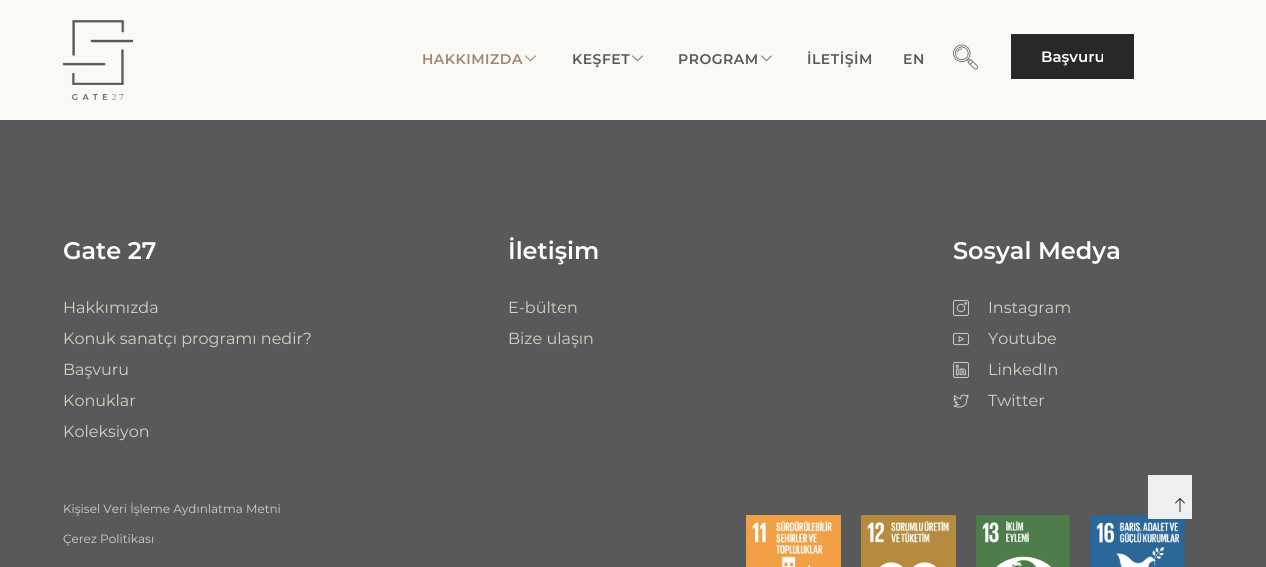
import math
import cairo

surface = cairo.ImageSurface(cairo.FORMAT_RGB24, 1266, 567)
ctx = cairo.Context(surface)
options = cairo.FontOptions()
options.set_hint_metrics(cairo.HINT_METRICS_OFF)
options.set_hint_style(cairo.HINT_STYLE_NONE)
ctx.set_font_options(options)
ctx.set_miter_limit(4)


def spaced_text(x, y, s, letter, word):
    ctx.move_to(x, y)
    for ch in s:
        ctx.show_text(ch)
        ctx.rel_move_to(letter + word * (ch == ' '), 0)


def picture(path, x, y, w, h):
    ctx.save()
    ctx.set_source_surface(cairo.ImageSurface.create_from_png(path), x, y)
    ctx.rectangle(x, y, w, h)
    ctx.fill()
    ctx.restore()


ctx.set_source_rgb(0.345, 0.349, 0.357)
ctx.paint()
ctx.set_source_rgb(0.98, 0.976, 0.961)
ctx.rectangle(0, 0, 1266, 120)
ctx.fill()
picture("img1.png", 63, 20, 71, 80)
ctx.select_font_face("Montserrat SemiBold")
ctx.set_font_size(14)
ctx.set_source_rgb(0.635, 0.518, 0.463)
spaced_text(422, 64, "HAKKIMIZDA", 0.5, 0)
picture("img2.png", 525, 55, 11, 7)
ctx.set_source_rgb(0.345, 0.349, 0.357)
spaced_text(572, 64, "KEŞFET", 0.5, 0)
picture("img3.png", 632, 55, 11, 7)
spaced_text(678, 64, "PROGRAM", 0.5, 0)
picture("img3.png", 761, 55, 11, 7)
spaced_text(807, 64, "İLETİŞİM", 0.5, 0)
spaced_text(903, 64, "EN", 0.5, 0)
picture("img4.png", 953, 44, 25, 26)
ctx.set_source_rgb(0.157, 0.157, 0.157)
ctx.rectangle(1011, 34, 123, 45)
ctx.fill()
ctx.set_font_size(15)
ctx.set_source_rgb(1, 1, 1)
ctx.move_to(1041, 62)
ctx.show_text("Başvuru")
ctx.set_font_size(24)
ctx.move_to(63, 259)
ctx.show_text("Gate 27")
ctx.select_font_face("Montserrat")
ctx.set_font_size(16)
ctx.set_source_rgb(0.82, 0.824, 0.761)
ctx.move_to(63, 313)
ctx.show_text("Hakkımızda")
ctx.move_to(63, 344)
ctx.show_text("Konuk sanatçı programı nedir?")
ctx.move_to(63, 375)
ctx.show_text("Başvuru")
ctx.move_to(63, 406)
ctx.show_text("Konuklar")
ctx.move_to(63, 437)
ctx.show_text("Koleksiyon")
ctx.select_font_face("Montserrat SemiBold")
ctx.set_font_size(24)
ctx.set_source_rgb(1, 1, 1)
ctx.move_to(508, 259)
ctx.show_text("İletişim")
ctx.select_font_face("Montserrat")
ctx.set_font_size(16)
ctx.set_source_rgb(0.82, 0.824, 0.761)
ctx.move_to(508, 313)
ctx.show_text("E-bülten")
ctx.move_to(508, 344)
ctx.show_text("Bize ulaşın")
ctx.select_font_face("Montserrat SemiBold")
ctx.set_font_size(24)
ctx.set_source_rgb(1, 1, 1)
ctx.move_to(953, 259)
ctx.show_text("Sosyal Medya")
picture("img5.png", 953, 300, 16, 16)
ctx.select_font_face("Montserrat")
ctx.set_font_size(16)
ctx.set_source_rgb(0.82, 0.824, 0.761)
ctx.move_to(988, 313)
ctx.show_text("Instagram")
picture("img6.png", 953, 332, 16, 14)
ctx.move_to(988, 344)
ctx.show_text("Youtube")
picture("img7.png", 953, 362, 16, 16)
ctx.move_to(988, 375)
ctx.show_text("LinkedIn")
picture("img8.png", 953, 394, 16, 14)
ctx.move_to(988, 406)
ctx.show_text("Twitter")
picture("img13.png", 1090, 515, 95, 52)
ctx.set_source_rgb(0.929, 0.937, 0.941)
ctx.rectangle(1148, 475, 44, 44)
ctx.fill()
picture("img9.png", 1175, 498, 10, 14)
ctx.set_font_size(12)
ctx.set_source_rgb(0.82, 0.824, 0.761)
ctx.move_to(63, 513)
ctx.show_text("Kişisel Veri İşleme Aydınlatma Metni")
ctx.move_to(63, 543)
ctx.show_text("Çerez Politikası")
picture("img10.png", 746, 515, 95, 52)
picture("img11.png", 861, 515, 95, 52)
picture("img12.png", 976, 515, 94, 52)
surface.write_to_png("page.png")
